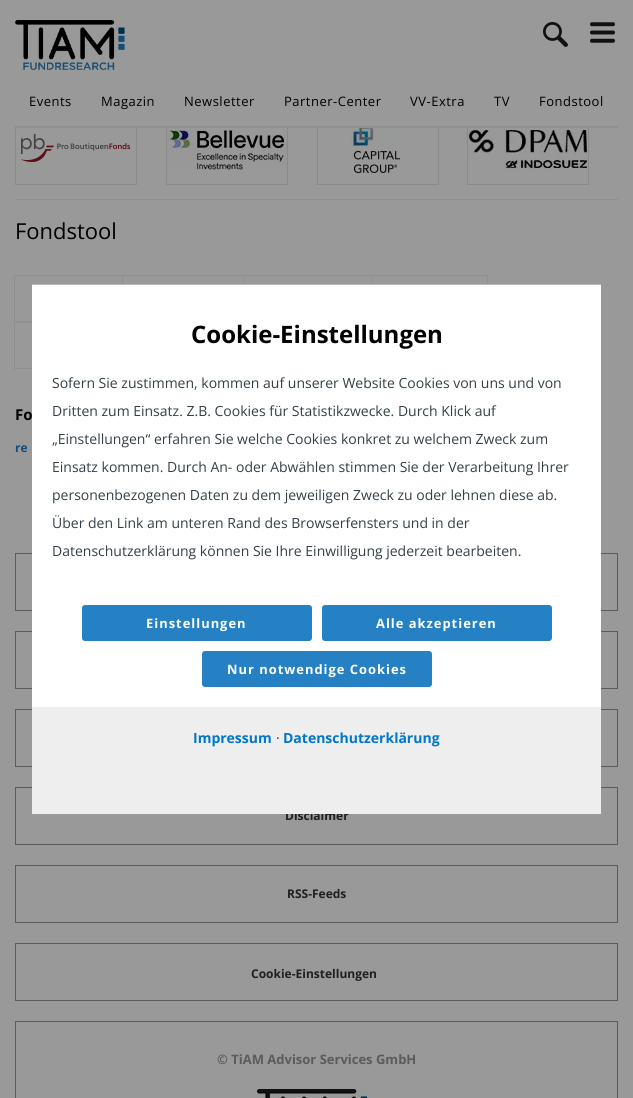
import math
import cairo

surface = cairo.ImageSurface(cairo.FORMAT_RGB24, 633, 1098)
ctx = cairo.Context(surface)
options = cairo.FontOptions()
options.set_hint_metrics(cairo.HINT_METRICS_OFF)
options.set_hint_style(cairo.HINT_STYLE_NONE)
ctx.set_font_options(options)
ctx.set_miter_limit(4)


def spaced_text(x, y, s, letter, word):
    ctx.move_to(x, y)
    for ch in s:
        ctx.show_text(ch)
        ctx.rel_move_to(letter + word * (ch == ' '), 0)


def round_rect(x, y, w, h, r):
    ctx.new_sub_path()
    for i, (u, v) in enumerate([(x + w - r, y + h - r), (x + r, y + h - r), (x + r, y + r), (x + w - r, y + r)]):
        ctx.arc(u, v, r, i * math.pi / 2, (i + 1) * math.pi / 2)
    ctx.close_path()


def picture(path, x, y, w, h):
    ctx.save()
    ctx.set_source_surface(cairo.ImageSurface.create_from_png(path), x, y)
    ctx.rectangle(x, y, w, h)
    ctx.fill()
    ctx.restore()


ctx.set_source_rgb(0.6, 0.6, 0.6)
ctx.paint()
ctx.rectangle(15.5, 113.5, 121, 71)
ctx.set_source_rgb(0.541, 0.541, 0.541)
ctx.set_line_width(1)
ctx.stroke()
ctx.rectangle(166.5, 113.5, 121, 71)
ctx.stroke()
ctx.rectangle(317.5, 113.5, 121, 71)
ctx.stroke()
ctx.rectangle(467.5, 113.5, 121, 71)
ctx.stroke()
ctx.set_source_rgb(0.6, 0.6, 0.6)
ctx.rectangle(15, 113, 574, 13)
ctx.fill()
picture("img1.png", 15, 20, 110, 50)
picture("img2.png", 543, 22, 25, 25)
picture("img3.png", 590, 22, 25, 21)
ctx.set_source_rgb(0.561, 0.561, 0.561)
ctx.rectangle(15, 126, 603, 2)
ctx.fill()
ctx.select_font_face("Open Sans")
ctx.set_font_size(13)
ctx.set_source_rgb(0, 0, 0)
spaced_text(29, 106, "Events", 0.5, 0)
spaced_text(101, 106, "Magazin", 0.5, 0)
spaced_text(184, 106, "Newsletter", 0.5, 0)
spaced_text(284, 106, "Partner-Center", 0.5, 0)
spaced_text(410, 106, "VV-Extra", 0.5, 0)
spaced_text(494, 106, "TV", 0.5, 0)
spaced_text(539, 106, "Fondstool", 0.5, 0)
ctx.set_source_rgb(0.561, 0.561, 0.561)
ctx.rectangle(15, 199, 603, 1)
ctx.fill()
picture("img4.png", 21, 134, 109, 28)
picture("img5.png", 167, 128, 120, 42)
picture("img6.png", 350, 128, 50, 46)
picture("img7.png", 469, 130, 119, 40)
ctx.set_font_size(22)
ctx.set_source_rgb(0, 0, 0)
ctx.move_to(15, 239)
ctx.show_text("Fondstool")
ctx.rectangle(14.5, 275.5, 108, 46)
ctx.set_source_rgb(0.561, 0.561, 0.561)
ctx.stroke()
ctx.rectangle(122.5, 275.5, 122, 46)
ctx.stroke()
ctx.rectangle(244.5, 275.5, 127, 46)
ctx.stroke()
ctx.rectangle(371.5, 275.5, 116, 46)
ctx.stroke()
ctx.rectangle(14.5, 322.5, 159, 46)
ctx.stroke()
ctx.select_font_face("Open Sans", cairo.FONT_SLANT_NORMAL, cairo.FONT_WEIGHT_BOLD)
ctx.set_font_size(15)
ctx.set_source_rgb(0, 0, 0)
ctx.move_to(15, 420)
ctx.show_text("Fo")
ctx.set_font_size(12)
ctx.set_source_rgb(0.086, 0.302, 0.463)
ctx.move_to(15, 452)
ctx.show_text("re")
ctx.rectangle(15.5, 553.5, 602, 57)
ctx.set_source_rgb(0.357, 0.357, 0.357)
ctx.stroke()
ctx.rectangle(15.5, 631.5, 602, 57)
ctx.stroke()
ctx.rectangle(15.5, 709.5, 602, 57)
ctx.stroke()
ctx.rectangle(15.5, 787.5, 602, 57)
ctx.stroke()
ctx.set_source_rgb(0.122, 0.122, 0.122)
ctx.move_to(285, 820)
ctx.show_text("Disclaimer")
ctx.rectangle(15.5, 865.5, 602, 57)
ctx.set_source_rgb(0.357, 0.357, 0.357)
ctx.stroke()
ctx.set_source_rgb(0.122, 0.122, 0.122)
ctx.move_to(287, 898)
ctx.show_text("RSS-Feeds")
ctx.rectangle(15.5, 943.5, 602, 57)
ctx.set_source_rgb(0.357, 0.357, 0.357)
ctx.stroke()
ctx.set_source_rgb(0.122, 0.122, 0.122)
ctx.move_to(251, 978)
ctx.show_text("Cookie-Einstellungen")
ctx.rectangle(15.5, 1021.5, 602, 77)
ctx.set_source_rgb(0.357, 0.357, 0.357)
ctx.stroke()
ctx.set_font_size(13)
ctx.move_to(217, 1064)
ctx.show_text("© TiAM Advisor Services GmbH")
picture("img8.png", 257, 1089, 110, 9)
ctx.set_source_rgb(1, 1, 1)
ctx.rectangle(32, 285, 569, 422)
ctx.fill()
ctx.set_source_rgb(0.733, 0.733, 0.733)
ctx.rectangle(32, 284, 569, 1)
ctx.fill()
ctx.set_font_size(24)
ctx.set_source_rgb(0, 0, 0)
ctx.move_to(191, 343)
ctx.show_text("Cookie-Einstellungen")
ctx.select_font_face("Open Sans")
ctx.set_font_size(14)
ctx.set_source_rgb(0.2, 0.251, 0.275)
ctx.move_to(52, 388)
ctx.show_text("Sofern Sie zustimmen, kommen auf unserer Website Cookies von uns und von")
ctx.move_to(52, 416)
ctx.show_text("Dritten zum Einsatz. Z.B. Cookies für Statistikzwecke. Durch Klick auf")
ctx.move_to(52, 444)
ctx.show_text("„Einstellungen“ erfahren Sie welche Cookies konkret zu welchem Zweck zum")
ctx.move_to(52, 472)
ctx.show_text("Einsatz kommen. Durch An- oder Abwählen stimmen Sie der Verarbeitung Ihrer")
ctx.move_to(52, 500)
ctx.show_text("personenbezogenen Daten zu dem jeweiligen Zweck zu oder lehnen diese ab.")
ctx.move_to(52, 528)
ctx.show_text("Über den Link am unteren Rand des Browserfensters und in der")
ctx.move_to(52, 556)
ctx.show_text("Datenschutzerklärung können Sie Ihre Einwilligung jederzeit bearbeiten.")
ctx.set_source_rgb(0.145, 0.506, 0.769)
round_rect(82, 605, 230, 36, 3)
ctx.fill()
ctx.select_font_face("Open Sans", cairo.FONT_SLANT_NORMAL, cairo.FONT_WEIGHT_BOLD)
ctx.set_font_size(12.9)
ctx.set_source_rgb(1, 1, 1)
spaced_text(146, 628, "Einstellungen", 1, 0)
ctx.set_source_rgb(0.145, 0.506, 0.769)
round_rect(322, 605, 230, 36, 3)
ctx.fill()
ctx.set_source_rgb(1, 1, 1)
spaced_text(376, 628, "Alle akzeptieren", 1, 0)
ctx.set_source_rgb(0.145, 0.506, 0.769)
round_rect(202, 651, 230, 36, 3)
ctx.fill()
ctx.set_source_rgb(1, 1, 1)
spaced_text(227, 674, "Nur notwendige Cookies", 1, 0)
ctx.set_source_rgb(0.933, 0.933, 0.933)
ctx.rectangle(32, 707, 569, 107)
ctx.fill()
ctx.set_font_size(14)
ctx.set_source_rgb(0, 0.467, 0.784)
ctx.move_to(193, 743)
ctx.show_text("Impressum")
ctx.select_font_face("Open Sans")
ctx.set_source_rgb(0.2, 0.251, 0.275)
ctx.move_to(276, 743)
ctx.show_text("·")
ctx.select_font_face("Open Sans", cairo.FONT_SLANT_NORMAL, cairo.FONT_WEIGHT_BOLD)
ctx.set_source_rgb(0, 0.467, 0.784)
ctx.move_to(283, 743)
ctx.show_text("Datenschutzerklärung")
surface.write_to_png("page.png")
